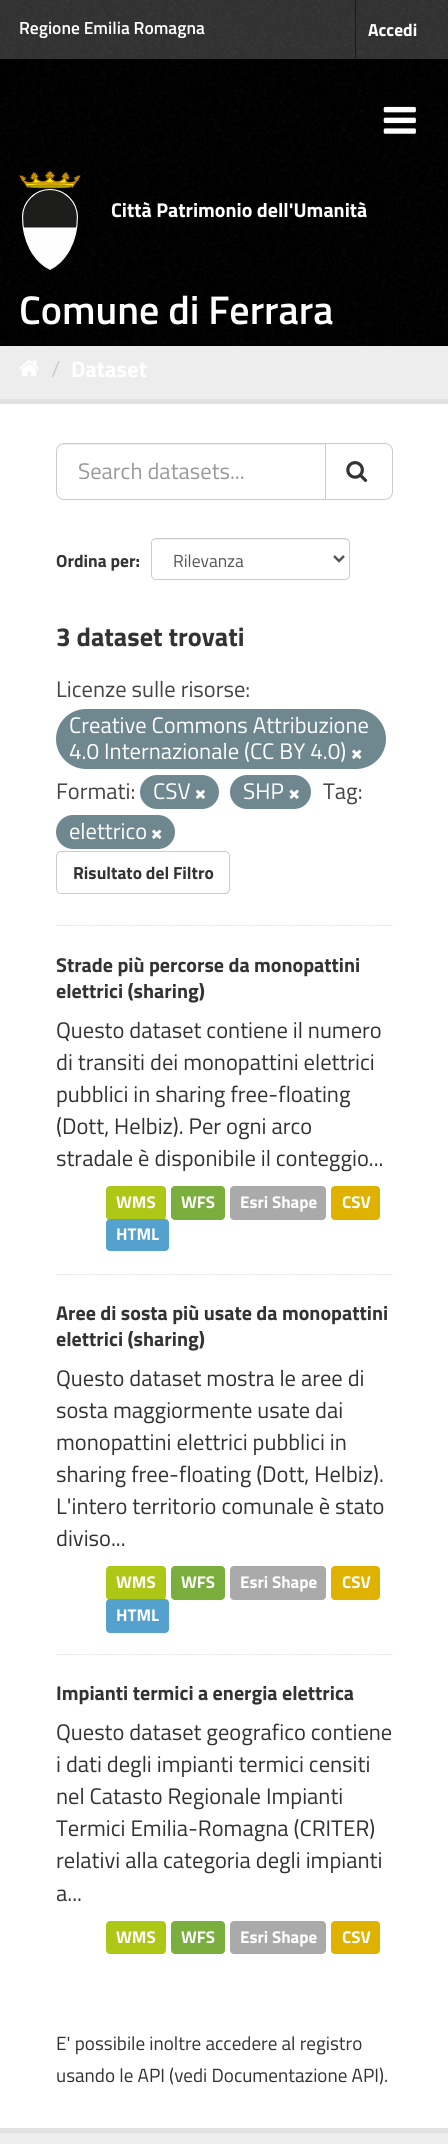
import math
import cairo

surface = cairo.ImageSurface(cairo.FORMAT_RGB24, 448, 2144)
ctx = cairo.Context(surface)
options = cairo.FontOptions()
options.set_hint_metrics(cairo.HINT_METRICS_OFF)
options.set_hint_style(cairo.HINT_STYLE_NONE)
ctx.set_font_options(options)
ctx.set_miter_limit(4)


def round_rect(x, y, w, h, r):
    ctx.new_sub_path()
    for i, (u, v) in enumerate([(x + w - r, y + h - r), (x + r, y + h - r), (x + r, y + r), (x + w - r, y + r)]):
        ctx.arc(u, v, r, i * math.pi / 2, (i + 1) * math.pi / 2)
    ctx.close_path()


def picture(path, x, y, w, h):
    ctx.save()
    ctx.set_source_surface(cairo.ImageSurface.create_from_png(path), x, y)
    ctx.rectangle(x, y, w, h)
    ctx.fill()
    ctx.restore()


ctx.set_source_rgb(0.2, 0.2, 0.2)
ctx.paint()
picture("img1.png", 0, 0, 448, 58)
ctx.select_font_face("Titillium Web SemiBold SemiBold")
ctx.set_font_size(17.5)
ctx.set_source_rgb(1, 1, 1)
ctx.move_to(19, 34)
ctx.show_text("Regione Emilia Romagna")
ctx.set_source_rgb(0, 0.137, 0.18)
ctx.rectangle(355, 0, 1, 59)
ctx.fill()
ctx.select_font_face("Titillium Web", cairo.FONT_SLANT_NORMAL, cairo.FONT_WEIGHT_BOLD)
ctx.set_source_rgb(1, 1, 1)
ctx.move_to(368, 36)
ctx.show_text("Accedi")
ctx.set_source_rgb(0, 0, 0)
ctx.rectangle(0, 59, 448, 287)
ctx.fill()
picture("img2.png", 0, 59, 448, 287)
picture("img3.png", 383, 106, 33, 28)
picture("img4.png", 19, 170, 62, 100)
ctx.set_font_size(20)
ctx.set_source_rgb(1, 1, 1)
ctx.move_to(111, 217)
ctx.show_text("Città Patrimonio dell'Umanità")
ctx.select_font_face("Titillium Web SemiBold SemiBold")
ctx.set_font_size(40)
ctx.move_to(19, 324)
ctx.show_text("Comune di Ferrara")
ctx.set_source_rgb(0.929, 0.929, 0.929)
ctx.rectangle(0, 346, 448, 1798)
ctx.fill()
picture("img5.png", 19, 360, 20, 17)
ctx.select_font_face("Titillium Web")
ctx.set_font_size(22.5)
ctx.set_source_rgb(0.8, 0.8, 0.8)
ctx.move_to(51, 377)
ctx.show_text("/")
ctx.select_font_face("Titillium Web", cairo.FONT_SLANT_NORMAL, cairo.FONT_WEIGHT_BOLD)
ctx.set_source_rgb(1, 1, 1)
ctx.move_to(71, 377)
ctx.show_text("Dataset")
ctx.rectangle(-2.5, 401.5, 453, 1729)
ctx.set_source_rgb(0.882, 0.882, 0.882)
ctx.set_line_width(5)
ctx.stroke()
ctx.set_source_rgb(1, 1, 1)
ctx.rectangle(0, 404, 448, 1724)
ctx.fill()
ctx.new_path()
ctx.move_to(56, 925.5)
ctx.line_to(392.5, 925.5)
ctx.set_source_rgb(0.867, 0.867, 0.867)
ctx.set_line_width(1.2)
ctx.set_dash([1.25, 1.25])
ctx.stroke()
ctx.set_source_rgb(0.925, 0.925, 0.925)
ctx.new_path()
ctx.move_to(64, 445)
ctx.line_to(325, 445)
ctx.line_to(325, 444)
ctx.line_to(64, 444)
ctx.curve_to(61, 444, 58, 447, 58, 450)
ctx.line_to(58, 451)
ctx.curve_to(58, 448, 60, 445, 64, 445)
ctx.close_path()
ctx.fill()
ctx.new_path()
ctx.move_to(64, 443.5)
ctx.line_to(325.5, 443.5)
ctx.line_to(325.5, 499.5)
ctx.line_to(64, 499.5)
ctx.curve_to(60, 499.5, 56.5, 496, 56.5, 492)
ctx.line_to(56.5, 451)
ctx.curve_to(56.5, 447, 60, 443.5, 64, 443.5)
ctx.close_path()
ctx.set_source_rgb(0.8, 0.8, 0.8)
ctx.set_line_width(1)
ctx.set_dash([])
ctx.stroke()
ctx.select_font_face("Titillium Web")
ctx.set_source_rgb(0.6, 0.6, 0.6)
ctx.move_to(78, 479)
ctx.show_text("Search datasets...")
ctx.set_source_rgb(1, 1, 1)
ctx.new_path()
ctx.move_to(325.5, 443.5)
ctx.line_to(385, 443.5)
ctx.curve_to(389, 443.5, 392.5, 447, 392.5, 451)
ctx.line_to(392.5, 492)
ctx.curve_to(392.5, 496, 389, 499.5, 385, 499.5)
ctx.line_to(325.5, 499.5)
ctx.close_path()
ctx.fill_preserve()
ctx.set_source_rgb(0.8, 0.8, 0.8)
ctx.stroke()
picture("img6.png", 346, 461, 22, 21)
ctx.select_font_face("Titillium Web", cairo.FONT_SLANT_NORMAL, cairo.FONT_WEIGHT_BOLD)
ctx.set_font_size(17.5)
ctx.set_source_rgb(0.2, 0.2, 0.2)
ctx.move_to(56, 567)
ctx.show_text("Ordina per:")
ctx.set_source_rgb(0.925, 0.925, 0.925)
ctx.new_path()
ctx.move_to(156, 540)
ctx.line_to(345, 540)
ctx.curve_to(347, 540, 349, 542, 349, 544)
ctx.line_to(349, 543)
ctx.curve_to(349, 541, 347, 539, 345, 539)
ctx.line_to(157, 539)
ctx.curve_to(156, 539, 154, 540, 154, 541)
ctx.close_path()
ctx.fill()
round_rect(151.5, 538.5, 198, 41, 4.5)
ctx.set_source_rgb(0.8, 0.8, 0.8)
ctx.stroke()
ctx.new_path()
ctx.move_to(334, 556)
ctx.line_to(339, 561)
ctx.line_to(344, 556)
ctx.set_source_rgb(0.333, 0.333, 0.333)
ctx.set_line_width(2.5)
ctx.stroke()
ctx.select_font_face("Titillium Web")
ctx.move_to(173, 567)
ctx.show_text("Rilevanza")
ctx.select_font_face("Titillium Web", cairo.FONT_SLANT_NORMAL, cairo.FONT_WEIGHT_BOLD)
ctx.set_font_size(26.25)
ctx.set_source_rgb(0.2, 0.2, 0.2)
ctx.move_to(56, 646)
ctx.show_text("3 dataset trovati")
ctx.select_font_face("Titillium Web")
ctx.set_font_size(22.5)
ctx.set_source_rgb(0.267, 0.267, 0.267)
ctx.move_to(56, 697)
ctx.show_text("Licenze sulle risorse:")
ctx.set_source_rgb(0.435, 0.533, 0.565)
round_rect(56, 709, 330, 60, 30)
ctx.fill()
ctx.set_source_rgb(1, 1, 1)
ctx.move_to(69, 733)
ctx.show_text("Creative Commons Attribuzione")
ctx.move_to(69, 759)
ctx.show_text("4.0 Internazionale (CC BY 4.0)")
picture("img7.png", 352, 749, 10, 10)
ctx.set_source_rgb(0.267, 0.267, 0.267)
ctx.move_to(56, 799)
ctx.show_text("Formati:")
ctx.set_source_rgb(0.435, 0.533, 0.565)
round_rect(140, 775, 79, 34, 17)
ctx.fill()
ctx.set_source_rgb(1, 1, 1)
ctx.move_to(153, 799)
ctx.show_text("CSV")
picture("img8.png", 195, 789, 10, 10)
ctx.set_source_rgb(0.435, 0.533, 0.565)
round_rect(230, 775, 81, 34, 17)
ctx.fill()
ctx.set_source_rgb(1, 1, 1)
ctx.move_to(243, 799)
ctx.show_text("SHP")
picture("img9.png", 289, 789, 10, 10)
ctx.set_source_rgb(0.267, 0.267, 0.267)
ctx.move_to(323, 799)
ctx.show_text("Tag:")
ctx.set_source_rgb(0.435, 0.533, 0.565)
round_rect(56, 815, 119, 34, 17)
ctx.fill()
ctx.set_source_rgb(1, 1, 1)
ctx.move_to(69, 839)
ctx.show_text("elettrico")
picture("img7.png", 152, 829, 10, 10)
round_rect(56.5, 851.5, 173, 42, 4.5)
ctx.set_source_rgb(0.8, 0.8, 0.8)
ctx.set_line_width(1)
ctx.stroke()
ctx.select_font_face("Titillium Web", cairo.FONT_SLANT_NORMAL, cairo.FONT_WEIGHT_BOLD)
ctx.set_font_size(17.5)
ctx.set_source_rgb(0.2, 0.2, 0.2)
ctx.move_to(73, 879)
ctx.show_text("Risultato del Filtro")
ctx.new_path()
ctx.move_to(56, 1274.5)
ctx.line_to(392.5, 1274.5)
ctx.set_source_rgb(0.867, 0.867, 0.867)
ctx.set_line_width(1.2)
ctx.set_dash([1.25, 1.25])
ctx.stroke()
ctx.set_font_size(20)
ctx.set_source_rgb(0.2, 0.2, 0.2)
ctx.move_to(56, 972)
ctx.show_text("Strade più percorse da monopattini")
ctx.move_to(56, 998)
ctx.show_text("elettrici (sharing)")
ctx.select_font_face("Titillium Web")
ctx.set_font_size(22.5)
ctx.move_to(56, 1038)
ctx.show_text("Questo dataset contiene il numero")
ctx.move_to(56, 1070)
ctx.show_text("di transiti dei monopattini elettrici")
ctx.move_to(56, 1102)
ctx.show_text("pubblici in sharing free-floating")
ctx.move_to(56, 1134)
ctx.show_text("(Dott, Helbiz). Per ogni arco")
ctx.move_to(56, 1166)
ctx.show_text("stradale è disponibile il conteggio...")
ctx.set_source_rgb(0.678, 0.78, 0.09)
round_rect(106, 1186, 60, 34, 4)
ctx.fill()
ctx.select_font_face("Titillium Web", cairo.FONT_SLANT_NORMAL, cairo.FONT_WEIGHT_BOLD)
ctx.set_font_size(17)
ctx.set_source_rgb(1, 1, 1)
ctx.move_to(116, 1208)
ctx.show_text("WMS")
ctx.set_source_rgb(0.478, 0.682, 0.239)
round_rect(171, 1186, 54, 34, 4)
ctx.fill()
ctx.set_source_rgb(1, 1, 1)
ctx.move_to(181, 1208)
ctx.show_text("WFS")
ctx.set_source_rgb(0.667, 0.667, 0.667)
round_rect(230, 1186, 96, 34, 4)
ctx.fill()
ctx.set_source_rgb(1, 1, 1)
ctx.move_to(240, 1208)
ctx.show_text("Esri Shape")
ctx.set_source_rgb(0.875, 0.694, 0)
round_rect(331, 1186, 49, 34, 4)
ctx.fill()
ctx.set_source_rgb(1, 1, 1)
ctx.move_to(342, 1208)
ctx.show_text("CSV")
ctx.set_source_rgb(0.333, 0.631, 0.808)
round_rect(106, 1219, 63, 32, 4)
ctx.fill()
ctx.set_source_rgb(1, 1, 1)
ctx.move_to(116, 1240)
ctx.show_text("HTML")
ctx.new_path()
ctx.move_to(56, 1654.5)
ctx.line_to(392.5, 1654.5)
ctx.set_source_rgb(0.867, 0.867, 0.867)
ctx.stroke()
ctx.set_font_size(20)
ctx.set_source_rgb(0.2, 0.2, 0.2)
ctx.move_to(56, 1320)
ctx.show_text("Aree di sosta più usate da monopattini")
ctx.move_to(56, 1346)
ctx.show_text("elettrici (sharing)")
ctx.select_font_face("Titillium Web")
ctx.set_font_size(22.5)
ctx.move_to(56, 1386)
ctx.show_text("Questo dataset mostra le aree di")
ctx.move_to(56, 1418)
ctx.show_text("sosta maggiormente usate dai")
ctx.move_to(56, 1450)
ctx.show_text("monopattini elettrici pubblici in")
ctx.move_to(56, 1482)
ctx.show_text("sharing free-floating (Dott, Helbiz).")
ctx.move_to(56, 1514)
ctx.show_text("L'intero territorio comunale è stato")
ctx.move_to(56, 1546)
ctx.show_text("diviso...")
ctx.set_source_rgb(0.678, 0.78, 0.09)
round_rect(106, 1566, 60, 34, 4)
ctx.fill()
ctx.select_font_face("Titillium Web", cairo.FONT_SLANT_NORMAL, cairo.FONT_WEIGHT_BOLD)
ctx.set_font_size(17)
ctx.set_source_rgb(1, 1, 1)
ctx.move_to(116, 1588)
ctx.show_text("WMS")
ctx.set_source_rgb(0.478, 0.682, 0.239)
round_rect(171, 1566, 54, 34, 4)
ctx.fill()
ctx.set_source_rgb(1, 1, 1)
ctx.move_to(181, 1588)
ctx.show_text("WFS")
ctx.set_source_rgb(0.667, 0.667, 0.667)
round_rect(230, 1566, 96, 34, 4)
ctx.fill()
ctx.set_source_rgb(1, 1, 1)
ctx.move_to(240, 1588)
ctx.show_text("Esri Shape")
ctx.set_source_rgb(0.875, 0.694, 0)
round_rect(331, 1566, 49, 34, 4)
ctx.fill()
ctx.set_source_rgb(1, 1, 1)
ctx.move_to(342, 1588)
ctx.show_text("CSV")
ctx.set_source_rgb(0.333, 0.631, 0.808)
round_rect(106, 1599, 63, 34, 4)
ctx.fill()
ctx.set_source_rgb(1, 1, 1)
ctx.move_to(116, 1621)
ctx.show_text("HTML")
ctx.set_font_size(20)
ctx.set_source_rgb(0.2, 0.2, 0.2)
ctx.move_to(56, 1700)
ctx.show_text("Impianti termici a energia elettrica")
ctx.select_font_face("Titillium Web")
ctx.set_font_size(22.5)
ctx.move_to(56, 1740)
ctx.show_text("Questo dataset geografico contiene")
ctx.move_to(56, 1772)
ctx.show_text("i dati degli impianti termici censiti")
ctx.move_to(56, 1804)
ctx.show_text("nel Catasto Regionale Impianti")
ctx.move_to(56, 1836)
ctx.show_text("Termici Emilia-Romagna (CRITER)")
ctx.move_to(56, 1868)
ctx.show_text("relativi alla categoria degli impianti")
ctx.move_to(56, 1901)
ctx.show_text("a...")
ctx.set_source_rgb(0.678, 0.78, 0.09)
round_rect(106, 1921, 60, 33, 4)
ctx.fill()
ctx.select_font_face("Titillium Web", cairo.FONT_SLANT_NORMAL, cairo.FONT_WEIGHT_BOLD)
ctx.set_font_size(17)
ctx.set_source_rgb(1, 1, 1)
ctx.move_to(116, 1943)
ctx.show_text("WMS")
ctx.set_source_rgb(0.478, 0.682, 0.239)
round_rect(171, 1921, 54, 33, 4)
ctx.fill()
ctx.set_source_rgb(1, 1, 1)
ctx.move_to(181, 1943)
ctx.show_text("WFS")
ctx.set_source_rgb(0.667, 0.667, 0.667)
round_rect(230, 1921, 96, 33, 4)
ctx.fill()
ctx.set_source_rgb(1, 1, 1)
ctx.move_to(240, 1943)
ctx.show_text("Esri Shape")
ctx.set_source_rgb(0.875, 0.694, 0)
round_rect(331, 1921, 49, 33, 4)
ctx.fill()
ctx.set_source_rgb(1, 1, 1)
ctx.move_to(342, 1943)
ctx.show_text("CSV")
ctx.select_font_face("Titillium Web")
ctx.set_font_size(19.1)
ctx.set_source_rgb(0.2, 0.2, 0.2)
ctx.move_to(56, 2050)
ctx.show_text("E' possibile inoltre accedere al registro")
ctx.move_to(56, 2082)
ctx.show_text("usando le API (vedi Documentazione API).")
surface.write_to_png("page.png")
